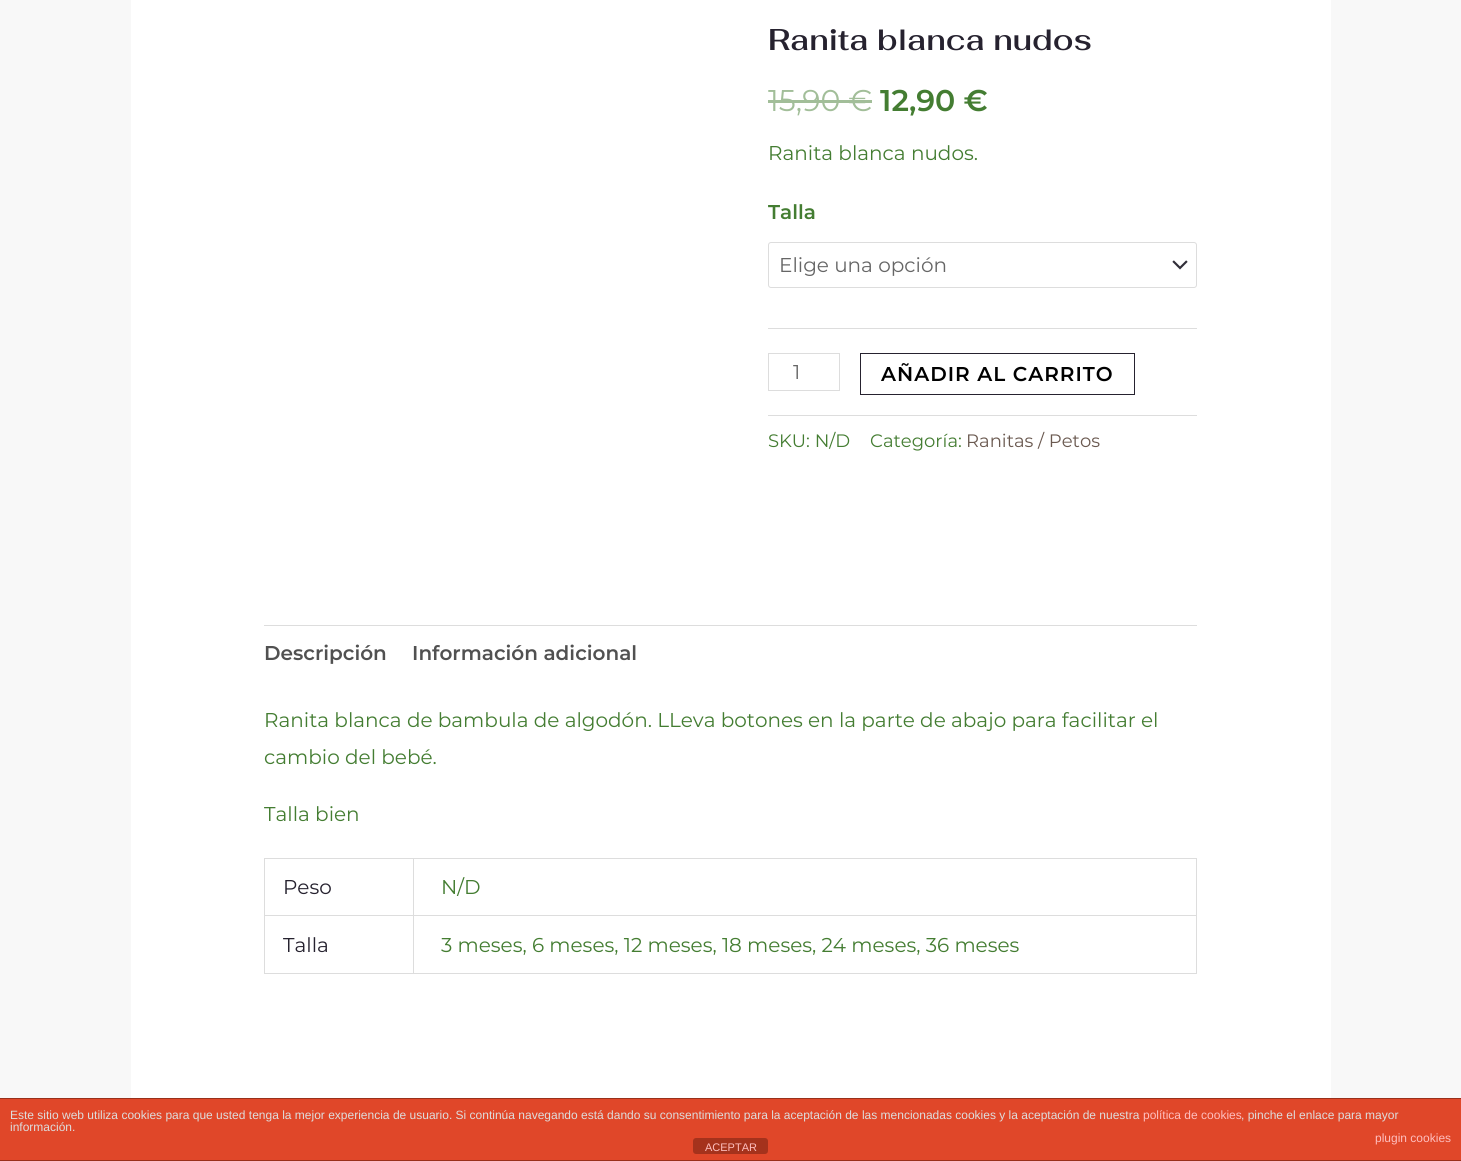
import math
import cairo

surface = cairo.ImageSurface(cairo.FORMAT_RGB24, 1461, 1161)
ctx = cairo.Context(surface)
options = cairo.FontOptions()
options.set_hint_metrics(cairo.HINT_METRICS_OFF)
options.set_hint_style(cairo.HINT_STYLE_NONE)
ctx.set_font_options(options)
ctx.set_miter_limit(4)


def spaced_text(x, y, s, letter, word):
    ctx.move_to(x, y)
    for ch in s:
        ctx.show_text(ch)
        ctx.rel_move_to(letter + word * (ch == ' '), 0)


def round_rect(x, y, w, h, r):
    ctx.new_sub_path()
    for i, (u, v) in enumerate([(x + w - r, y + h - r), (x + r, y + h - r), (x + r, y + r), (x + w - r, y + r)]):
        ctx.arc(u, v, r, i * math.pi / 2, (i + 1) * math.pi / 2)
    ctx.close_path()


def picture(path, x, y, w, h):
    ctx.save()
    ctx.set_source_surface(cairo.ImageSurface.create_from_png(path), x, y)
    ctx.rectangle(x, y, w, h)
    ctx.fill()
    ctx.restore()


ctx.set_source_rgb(0.969, 0.969, 0.969)
ctx.paint()
ctx.set_source_rgb(1, 1, 1)
ctx.rectangle(131, 0, 1200, 1098)
ctx.fill()
ctx.select_font_face("Fahkwang SemiBold")
ctx.set_font_size(30)
ctx.set_source_rgb(0.149, 0.133, 0.184)
ctx.move_to(768, 50)
ctx.show_text("Ranita blanca nudos")
ctx.select_font_face("Montserrat")
ctx.set_source_rgb(0.635, 0.745, 0.6)
ctx.move_to(768, 111)
ctx.show_text("15,90 €")
ctx.rectangle(768, 100, 104, 3)
ctx.fill()
ctx.select_font_face("Montserrat SemiBold")
ctx.set_source_rgb(0.267, 0.49, 0.196)
ctx.move_to(880, 111)
ctx.show_text("12,90 €")
ctx.select_font_face("Montserrat")
ctx.set_font_size(20)
ctx.move_to(768, 160)
ctx.show_text("Ranita blanca nudos.")
ctx.set_source_rgb(0.867, 0.867, 0.867)
ctx.rectangle(768, 328, 429, 1)
ctx.fill()
ctx.select_font_face("Montserrat SemiBold")
ctx.set_source_rgb(0.267, 0.49, 0.196)
ctx.move_to(768, 219)
ctx.show_text("Talla")
picture("img1.png", 1172, 260, 16, 10)
round_rect(768.5, 242.5, 428, 45, 2.5)
ctx.set_source_rgb(0.867, 0.867, 0.867)
ctx.set_line_width(1)
ctx.stroke()
ctx.select_font_face("Montserrat")
ctx.set_source_rgb(0.4, 0.4, 0.4)
ctx.move_to(779, 272)
ctx.show_text("Elige una opción")
ctx.rectangle(768.5, 353.5, 71, 37)
ctx.set_source_rgb(0.867, 0.867, 0.867)
ctx.stroke()
ctx.set_source_rgb(0.4, 0.4, 0.4)
ctx.move_to(793, 379)
ctx.show_text("1")
ctx.rectangle(860.5, 353.5, 274, 41)
ctx.set_source_rgb(0.149, 0.133, 0.184)
ctx.stroke()
ctx.select_font_face("Montserrat SemiBold")
ctx.set_source_rgb(0, 0, 0)
spaced_text(881, 381, "AÑADIR AL CARRITO", 1, 0)
ctx.set_source_rgb(0.867, 0.867, 0.867)
ctx.rectangle(768, 415, 429, 1)
ctx.fill()
ctx.select_font_face("Montserrat")
ctx.set_font_size(18)
ctx.set_source_rgb(0.267, 0.49, 0.196)
ctx.move_to(768, 447)
ctx.show_text("SKU: N/D")
ctx.move_to(870, 447)
ctx.show_text("Categoría:")
ctx.set_source_rgb(0.416, 0.349, 0.314)
ctx.move_to(966, 447)
ctx.show_text("Ranitas / Petos")
ctx.set_source_rgb(0.867, 0.867, 0.867)
ctx.rectangle(264, 625, 933, 1)
ctx.fill()
ctx.select_font_face("Montserrat SemiBold")
ctx.set_font_size(20)
ctx.set_source_rgb(0.318, 0.318, 0.318)
ctx.move_to(264, 660)
ctx.show_text("Descripción")
ctx.move_to(412, 660)
ctx.show_text("Información adicional")
ctx.select_font_face("Montserrat")
ctx.set_source_rgb(0.267, 0.49, 0.196)
ctx.move_to(264, 727)
ctx.show_text("Ranita blanca de bambula de algodón. LLeva botones en la parte de abajo para facilitar el")
ctx.move_to(264, 764)
ctx.show_text("cambio del bebé.")
ctx.move_to(264, 821)
ctx.show_text("Talla bien")
ctx.set_source_rgb(0.867, 0.867, 0.867)
ctx.rectangle(264, 858, 933, 1)
ctx.fill()
ctx.rectangle(413, 859, 1, 115)
ctx.fill()
ctx.rectangle(264, 915, 150, 1)
ctx.fill()
ctx.rectangle(264, 859, 1, 57)
ctx.fill()
ctx.set_source_rgb(0.149, 0.133, 0.184)
ctx.move_to(283, 894)
ctx.show_text("Peso")
ctx.set_source_rgb(0.867, 0.867, 0.867)
ctx.rectangle(1196, 859, 1, 115)
ctx.fill()
ctx.rectangle(414, 915, 783, 1)
ctx.fill()
ctx.set_source_rgb(0.267, 0.49, 0.196)
ctx.move_to(441, 894)
ctx.show_text("N/D")
ctx.set_source_rgb(0.867, 0.867, 0.867)
ctx.rectangle(264, 973, 933, 1)
ctx.fill()
ctx.rectangle(264, 916, 1, 58)
ctx.fill()
ctx.set_source_rgb(0.149, 0.133, 0.184)
ctx.move_to(283, 952)
ctx.show_text("Talla")
ctx.set_source_rgb(0.267, 0.49, 0.196)
ctx.move_to(441, 952)
ctx.show_text("3 meses, 6 meses, 12 meses, 18 meses, 24 meses, 36 meses")
ctx.set_source_rgb(0.878, 0.278, 0.161)
ctx.rectangle(0, 1099, 1461, 61)
ctx.fill()
ctx.set_source_rgb(0.6, 0.188, 0.106)
ctx.rectangle(0, 1098, 1461, 1)
ctx.fill()
ctx.rectangle(0, 1160, 1461, 1)
ctx.fill()
ctx.select_font_face("Liberation Sans")
ctx.set_font_size(12)
ctx.set_source_rgb(0.867, 0.867, 0.867)
ctx.move_to(10, 1119)
ctx.show_text("Este sitio web utiliza cookies para que usted tenga la mejor experiencia de usuario. Si continúa navegando está dando su consentimiento para la aceptación de las mencionadas cookies y la aceptación de nuestra")
ctx.set_source_rgb(0.996, 0.745, 0.745)
ctx.move_to(1143, 1119)
ctx.show_text("política de cookies")
ctx.set_source_rgb(0.867, 0.867, 0.867)
ctx.move_to(1241, 1119)
ctx.show_text(", pinche el enlace para mayor")
ctx.move_to(10, 1131)
ctx.show_text("información.")
ctx.set_source_rgb(0.996, 0.745, 0.745)
ctx.move_to(1375, 1142)
ctx.show_text("plugin cookies")
ctx.set_source_rgb(0.647, 0.196, 0.11)
round_rect(693, 1138, 75, 16, 3)
ctx.fill()
ctx.set_font_size(11)
ctx.set_source_rgb(0.996, 0.745, 0.745)
ctx.move_to(705, 1151)
ctx.show_text("ACEPTAR")
surface.write_to_png("page.png")
